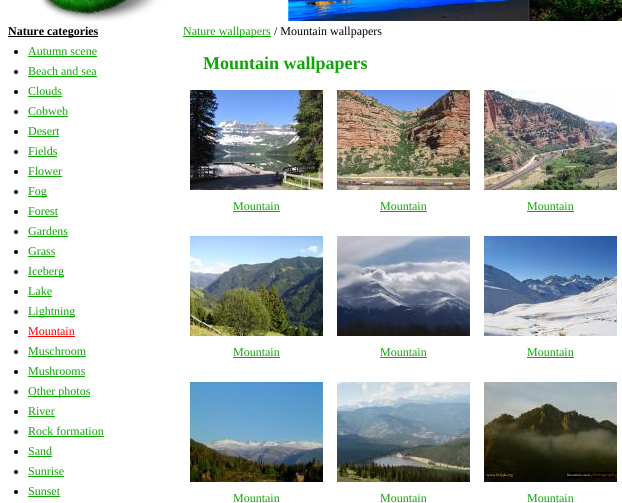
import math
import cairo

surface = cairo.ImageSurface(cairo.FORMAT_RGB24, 622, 503)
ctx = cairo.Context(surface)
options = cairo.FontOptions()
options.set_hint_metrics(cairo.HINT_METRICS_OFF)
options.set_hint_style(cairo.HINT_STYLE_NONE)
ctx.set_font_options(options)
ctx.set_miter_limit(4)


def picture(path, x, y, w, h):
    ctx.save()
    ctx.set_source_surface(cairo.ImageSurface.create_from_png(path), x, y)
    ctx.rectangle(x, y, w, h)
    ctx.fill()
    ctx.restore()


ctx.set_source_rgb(1, 1, 1)
ctx.paint()
picture("img1.png", 40, 0, 582, 21)
ctx.set_source_rgb(0, 0, 0)
ctx.rectangle(8, 36, 90, 1)
ctx.fill()
ctx.select_font_face("Liberation Serif", cairo.FONT_SLANT_NORMAL, cairo.FONT_WEIGHT_BOLD)
ctx.set_font_size(12)
ctx.move_to(8, 35)
ctx.show_text("Nature categories")
ctx.new_path()
ctx.arc(16, 52, 2, 0, 2 * math.pi)
ctx.fill()
ctx.select_font_face("Liberation Serif")
ctx.set_source_rgb(0.059, 0.647, 0.024)
ctx.move_to(28, 55)
ctx.show_text("Autumn scene")
ctx.rectangle(28, 56, 69, 1)
ctx.fill()
ctx.set_source_rgb(0, 0, 0)
ctx.arc(16, 72, 2, 0, 2 * math.pi)
ctx.fill()
ctx.set_source_rgb(0.059, 0.647, 0.024)
ctx.move_to(28, 75)
ctx.show_text("Beach and sea")
ctx.rectangle(28, 76, 69, 1)
ctx.fill()
ctx.set_source_rgb(0, 0, 0)
ctx.arc(16, 92, 2, 0, 2 * math.pi)
ctx.fill()
ctx.set_source_rgb(0.059, 0.647, 0.024)
ctx.move_to(28, 95)
ctx.show_text("Clouds")
ctx.rectangle(28, 96, 34, 1)
ctx.fill()
ctx.set_source_rgb(0, 0, 0)
ctx.arc(16, 112, 2, 0, 2 * math.pi)
ctx.fill()
ctx.set_source_rgb(0.059, 0.647, 0.024)
ctx.move_to(28, 115)
ctx.show_text("Cobweb")
ctx.rectangle(28, 116, 40, 1)
ctx.fill()
ctx.set_source_rgb(0, 0, 0)
ctx.arc(16, 132, 2, 0, 2 * math.pi)
ctx.fill()
ctx.set_source_rgb(0.059, 0.647, 0.024)
ctx.move_to(28, 135)
ctx.show_text("Desert")
ctx.rectangle(28, 136, 31, 1)
ctx.fill()
ctx.set_source_rgb(0, 0, 0)
ctx.arc(16, 152, 2, 0, 2 * math.pi)
ctx.fill()
ctx.set_source_rgb(0.059, 0.647, 0.024)
ctx.move_to(28, 155)
ctx.show_text("Fields")
ctx.rectangle(28, 156, 29, 1)
ctx.fill()
ctx.set_source_rgb(0, 0, 0)
ctx.arc(16, 172, 2, 0, 2 * math.pi)
ctx.fill()
ctx.set_source_rgb(0.059, 0.647, 0.024)
ctx.move_to(28, 175)
ctx.show_text("Flower")
ctx.rectangle(28, 176, 34, 1)
ctx.fill()
ctx.set_source_rgb(0, 0, 0)
ctx.arc(16, 192, 2, 0, 2 * math.pi)
ctx.fill()
ctx.set_source_rgb(0.059, 0.647, 0.024)
ctx.rectangle(28, 196, 19, 1)
ctx.fill()
ctx.move_to(28, 195)
ctx.show_text("Fog")
ctx.set_source_rgb(0, 0, 0)
ctx.new_path()
ctx.arc(16, 212, 2, 0, 2 * math.pi)
ctx.fill()
ctx.set_source_rgb(0.059, 0.647, 0.024)
ctx.move_to(28, 215)
ctx.show_text("Forest")
ctx.rectangle(28, 216, 30, 1)
ctx.fill()
ctx.set_source_rgb(0, 0, 0)
ctx.arc(16, 232, 2, 0, 2 * math.pi)
ctx.fill()
ctx.set_source_rgb(0.059, 0.647, 0.024)
ctx.move_to(28, 235)
ctx.show_text("Gardens")
ctx.rectangle(28, 236, 40, 1)
ctx.fill()
ctx.set_source_rgb(0, 0, 0)
ctx.arc(16, 252, 2, 0, 2 * math.pi)
ctx.fill()
ctx.set_source_rgb(0.059, 0.647, 0.024)
ctx.move_to(28, 255)
ctx.show_text("Grass")
ctx.rectangle(28, 256, 27, 1)
ctx.fill()
ctx.set_source_rgb(0, 0, 0)
ctx.arc(16, 272, 2, 0, 2 * math.pi)
ctx.fill()
ctx.set_source_rgb(0.059, 0.647, 0.024)
ctx.rectangle(28, 276, 36, 1)
ctx.fill()
ctx.move_to(28, 275)
ctx.show_text("Iceberg")
ctx.set_source_rgb(0, 0, 0)
ctx.new_path()
ctx.arc(16, 292, 2, 0, 2 * math.pi)
ctx.fill()
ctx.set_source_rgb(0.059, 0.647, 0.024)
ctx.move_to(28, 295)
ctx.show_text("Lake")
ctx.rectangle(28, 296, 24, 1)
ctx.fill()
ctx.set_source_rgb(0, 0, 0)
ctx.arc(16, 312, 2, 0, 2 * math.pi)
ctx.fill()
ctx.set_source_rgb(0.059, 0.647, 0.024)
ctx.rectangle(28, 316, 47, 1)
ctx.fill()
ctx.move_to(28, 315)
ctx.show_text("Lightning")
ctx.set_source_rgb(0, 0, 0)
ctx.new_path()
ctx.arc(16, 332, 2, 0, 2 * math.pi)
ctx.fill()
ctx.set_source_rgb(1, 0, 0)
ctx.move_to(28, 335)
ctx.show_text("Mountain")
ctx.rectangle(28, 336, 47, 1)
ctx.fill()
ctx.set_source_rgb(0, 0, 0)
ctx.arc(16, 352, 2, 0, 2 * math.pi)
ctx.fill()
ctx.set_source_rgb(0.059, 0.647, 0.024)
ctx.move_to(28, 355)
ctx.show_text("Muschroom")
ctx.rectangle(28, 356, 58, 1)
ctx.fill()
ctx.set_source_rgb(0, 0, 0)
ctx.arc(16, 372, 2, 0, 2 * math.pi)
ctx.fill()
ctx.set_source_rgb(0.059, 0.647, 0.024)
ctx.move_to(28, 375)
ctx.show_text("Mushrooms")
ctx.rectangle(28, 376, 57, 1)
ctx.fill()
ctx.set_source_rgb(0, 0, 0)
ctx.arc(16, 392, 2, 0, 2 * math.pi)
ctx.fill()
ctx.set_source_rgb(0.059, 0.647, 0.024)
ctx.rectangle(28, 396, 62, 1)
ctx.fill()
ctx.move_to(28, 395)
ctx.show_text("Other photos")
ctx.set_source_rgb(0, 0, 0)
ctx.new_path()
ctx.arc(16, 412, 2, 0, 2 * math.pi)
ctx.fill()
ctx.set_source_rgb(0.059, 0.647, 0.024)
ctx.move_to(28, 415)
ctx.show_text("River")
ctx.rectangle(28, 416, 27, 1)
ctx.fill()
ctx.set_source_rgb(0, 0, 0)
ctx.arc(16, 432, 2, 0, 2 * math.pi)
ctx.fill()
ctx.set_source_rgb(0.059, 0.647, 0.024)
ctx.move_to(28, 435)
ctx.show_text("Rock formation")
ctx.rectangle(28, 436, 76, 1)
ctx.fill()
ctx.set_source_rgb(0, 0, 0)
ctx.arc(16, 452, 2, 0, 2 * math.pi)
ctx.fill()
ctx.set_source_rgb(0.059, 0.647, 0.024)
ctx.move_to(28, 455)
ctx.show_text("Sand")
ctx.rectangle(28, 456, 24, 1)
ctx.fill()
ctx.set_source_rgb(0, 0, 0)
ctx.arc(16, 472, 2, 0, 2 * math.pi)
ctx.fill()
ctx.set_source_rgb(0.059, 0.647, 0.024)
ctx.move_to(28, 475)
ctx.show_text("Sunrise")
ctx.rectangle(28, 476, 36, 1)
ctx.fill()
ctx.set_source_rgb(0, 0, 0)
ctx.arc(16, 492, 2, 0, 2 * math.pi)
ctx.fill()
ctx.set_source_rgb(0.059, 0.647, 0.024)
ctx.move_to(28, 495)
ctx.show_text("Sunset")
ctx.rectangle(28, 496, 32, 1)
ctx.fill()
ctx.rectangle(183, 36, 88, 1)
ctx.fill()
ctx.move_to(183, 35)
ctx.show_text("Nature wallpapers")
ctx.set_source_rgb(0, 0, 0)
ctx.move_to(274, 35)
ctx.show_text("/ Mountain wallpapers")
ctx.select_font_face("Liberation Serif", cairo.FONT_SLANT_NORMAL, cairo.FONT_WEIGHT_BOLD)
ctx.set_font_size(18)
ctx.set_source_rgb(0.059, 0.647, 0.024)
ctx.move_to(203, 69)
ctx.show_text("Mountain wallpapers")
picture("img2.png", 190, 90, 133, 100)
ctx.select_font_face("Liberation Serif")
ctx.set_font_size(12)
ctx.move_to(233, 210)
ctx.show_text("Mountain")
ctx.rectangle(233, 211, 47, 1)
ctx.fill()
picture("img3.png", 337, 90, 133, 100)
ctx.move_to(380, 210)
ctx.show_text("Mountain")
ctx.rectangle(380, 211, 47, 1)
ctx.fill()
picture("img4.png", 484, 90, 133, 100)
ctx.move_to(527, 210)
ctx.show_text("Mountain")
ctx.rectangle(527, 211, 47, 1)
ctx.fill()
picture("img5.png", 190, 236, 133, 100)
ctx.move_to(233, 356)
ctx.show_text("Mountain")
ctx.rectangle(233, 357, 47, 1)
ctx.fill()
picture("img6.png", 337, 236, 133, 100)
ctx.move_to(380, 356)
ctx.show_text("Mountain")
ctx.rectangle(380, 357, 47, 1)
ctx.fill()
picture("img7.png", 484, 236, 133, 100)
ctx.move_to(527, 356)
ctx.show_text("Mountain")
ctx.rectangle(527, 357, 47, 1)
ctx.fill()
picture("img8.png", 190, 382, 133, 100)
ctx.move_to(233, 502)
ctx.show_text("Mountain")
picture("img9.png", 337, 382, 133, 100)
ctx.move_to(380, 502)
ctx.show_text("Mountain")
picture("img10.png", 484, 382, 133, 100)
ctx.move_to(527, 502)
ctx.show_text("Mountain")
surface.write_to_png("page.png")
